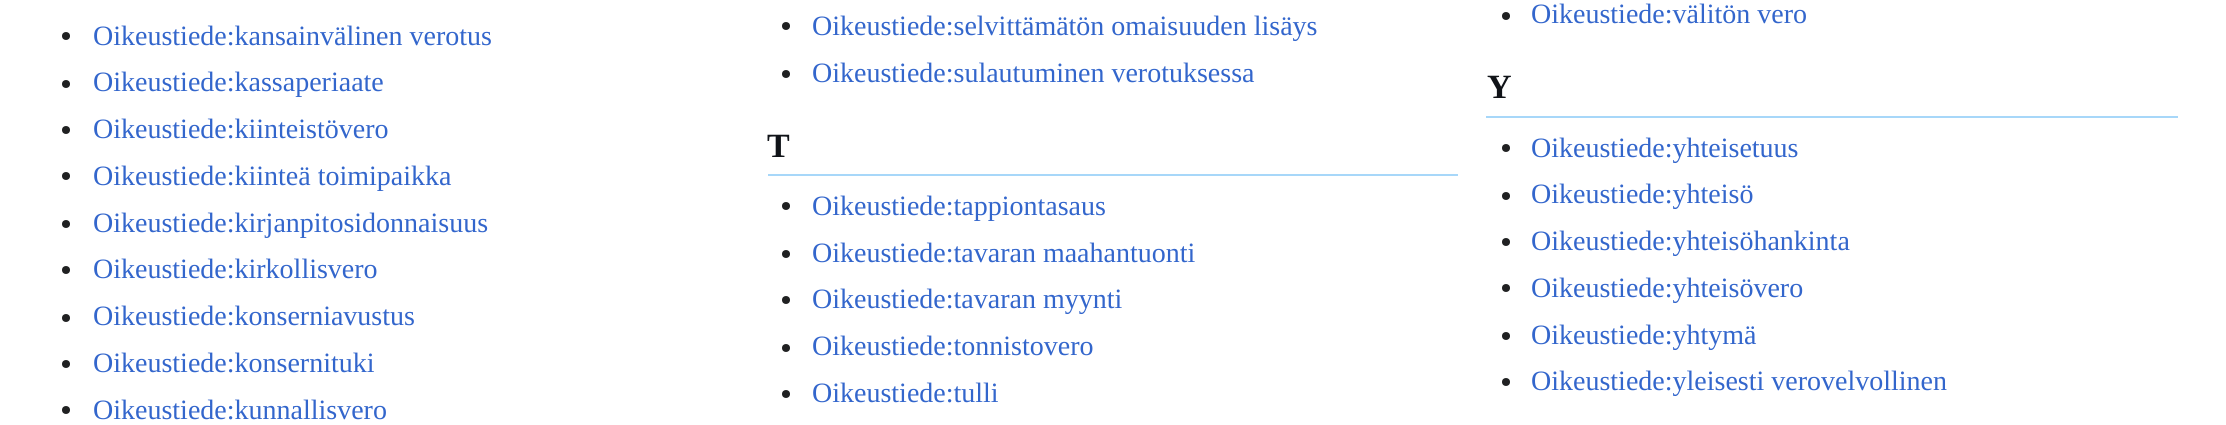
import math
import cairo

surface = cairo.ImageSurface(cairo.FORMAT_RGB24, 2226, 425)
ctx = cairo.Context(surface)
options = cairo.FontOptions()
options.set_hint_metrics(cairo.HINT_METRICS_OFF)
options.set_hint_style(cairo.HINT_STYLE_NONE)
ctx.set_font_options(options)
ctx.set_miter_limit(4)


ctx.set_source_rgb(1, 1, 1)
ctx.paint()
ctx.set_source_rgb(0.125, 0.129, 0.133)
ctx.arc(66, 36, 4, 0, 2 * math.pi)
ctx.fill()
ctx.select_font_face("Liberation Serif")
ctx.set_font_size(28)
ctx.set_source_rgb(0.2, 0.4, 0.8)
ctx.move_to(93, 45)
ctx.show_text("Oikeustiede:kansainvälinen verotus")
ctx.set_source_rgb(0.125, 0.129, 0.133)
ctx.new_path()
ctx.arc(66, 84, 4, 0, 2 * math.pi)
ctx.fill()
ctx.set_source_rgb(0.2, 0.4, 0.8)
ctx.move_to(93, 91)
ctx.show_text("Oikeustiede:kassaperiaate")
ctx.set_source_rgb(0.125, 0.129, 0.133)
ctx.new_path()
ctx.arc(66, 130, 4, 0, 2 * math.pi)
ctx.fill()
ctx.set_source_rgb(0.2, 0.4, 0.8)
ctx.move_to(93, 138)
ctx.show_text("Oikeustiede:kiinteistövero")
ctx.set_source_rgb(0.125, 0.129, 0.133)
ctx.new_path()
ctx.arc(66, 176, 4, 0, 2 * math.pi)
ctx.fill()
ctx.set_source_rgb(0.2, 0.4, 0.8)
ctx.move_to(93, 185)
ctx.show_text("Oikeustiede:kiinteä toimipaikka")
ctx.set_source_rgb(0.125, 0.129, 0.133)
ctx.new_path()
ctx.arc(66, 224, 4, 0, 2 * math.pi)
ctx.fill()
ctx.set_source_rgb(0.2, 0.4, 0.8)
ctx.move_to(93, 232)
ctx.show_text("Oikeustiede:kirjanpitosidonnaisuus")
ctx.set_source_rgb(0.125, 0.129, 0.133)
ctx.new_path()
ctx.arc(66, 270, 4, 0, 2 * math.pi)
ctx.fill()
ctx.set_source_rgb(0.2, 0.4, 0.8)
ctx.move_to(93, 278)
ctx.show_text("Oikeustiede:kirkollisvero")
ctx.set_source_rgb(0.125, 0.129, 0.133)
ctx.new_path()
ctx.arc(66, 318, 4, 0, 2 * math.pi)
ctx.fill()
ctx.set_source_rgb(0.2, 0.4, 0.8)
ctx.move_to(93, 325)
ctx.show_text("Oikeustiede:konserniavustus")
ctx.set_source_rgb(0.125, 0.129, 0.133)
ctx.new_path()
ctx.arc(66, 364, 4, 0, 2 * math.pi)
ctx.fill()
ctx.set_source_rgb(0.2, 0.4, 0.8)
ctx.move_to(93, 372)
ctx.show_text("Oikeustiede:konsernituki")
ctx.set_source_rgb(0.125, 0.129, 0.133)
ctx.new_path()
ctx.arc(66, 410, 4, 0, 2 * math.pi)
ctx.fill()
ctx.set_source_rgb(0.2, 0.4, 0.8)
ctx.move_to(93, 419)
ctx.show_text("Oikeustiede:kunnallisvero")
ctx.set_source_rgb(0.125, 0.129, 0.133)
ctx.new_path()
ctx.arc(786, 26, 4, 0, 2 * math.pi)
ctx.fill()
ctx.set_source_rgb(0.2, 0.4, 0.8)
ctx.move_to(812, 35)
ctx.show_text("Oikeustiede:selvittämätön omaisuuden lisäys")
ctx.set_source_rgb(0.125, 0.129, 0.133)
ctx.new_path()
ctx.arc(786, 74, 4, 0, 2 * math.pi)
ctx.fill()
ctx.set_source_rgb(0.2, 0.4, 0.8)
ctx.move_to(812, 82)
ctx.show_text("Oikeustiede:sulautuminen verotuksessa")
ctx.set_source_rgb(0.125, 0.129, 0.133)
ctx.new_path()
ctx.arc(1506, 16, 4, 0, 2 * math.pi)
ctx.fill()
ctx.set_source_rgb(0.2, 0.4, 0.8)
ctx.move_to(1531, 23)
ctx.show_text("Oikeustiede:välitön vero")
ctx.set_source_rgb(0.655, 0.843, 0.976)
ctx.rectangle(768, 174, 690, 2)
ctx.fill()
ctx.select_font_face("Liberation Serif", cairo.FONT_SLANT_NORMAL, cairo.FONT_WEIGHT_BOLD)
ctx.set_font_size(34)
ctx.set_source_rgb(0.063, 0.078, 0.094)
ctx.move_to(767, 157)
ctx.show_text("T")
ctx.set_source_rgb(0.125, 0.129, 0.133)
ctx.new_path()
ctx.arc(786, 206, 4, 0, 2 * math.pi)
ctx.fill()
ctx.select_font_face("Liberation Serif")
ctx.set_font_size(28)
ctx.set_source_rgb(0.2, 0.4, 0.8)
ctx.move_to(812, 215)
ctx.show_text("Oikeustiede:tappiontasaus")
ctx.set_source_rgb(0.125, 0.129, 0.133)
ctx.new_path()
ctx.arc(786, 254, 4, 0, 2 * math.pi)
ctx.fill()
ctx.set_source_rgb(0.2, 0.4, 0.8)
ctx.move_to(812, 262)
ctx.show_text("Oikeustiede:tavaran maahantuonti")
ctx.set_source_rgb(0.125, 0.129, 0.133)
ctx.new_path()
ctx.arc(786, 300, 4, 0, 2 * math.pi)
ctx.fill()
ctx.set_source_rgb(0.2, 0.4, 0.8)
ctx.move_to(812, 308)
ctx.show_text("Oikeustiede:tavaran myynti")
ctx.set_source_rgb(0.125, 0.129, 0.133)
ctx.new_path()
ctx.arc(786, 348, 4, 0, 2 * math.pi)
ctx.fill()
ctx.set_source_rgb(0.2, 0.4, 0.8)
ctx.move_to(812, 355)
ctx.show_text("Oikeustiede:tonnistovero")
ctx.set_source_rgb(0.125, 0.129, 0.133)
ctx.new_path()
ctx.arc(786, 394, 4, 0, 2 * math.pi)
ctx.fill()
ctx.set_source_rgb(0.2, 0.4, 0.8)
ctx.move_to(812, 402)
ctx.show_text("Oikeustiede:tulli")
ctx.set_source_rgb(0.655, 0.843, 0.976)
ctx.rectangle(1486, 116, 692, 2)
ctx.fill()
ctx.select_font_face("Liberation Serif", cairo.FONT_SLANT_NORMAL, cairo.FONT_WEIGHT_BOLD)
ctx.set_font_size(34)
ctx.set_source_rgb(0.063, 0.078, 0.094)
ctx.move_to(1487, 98)
ctx.show_text("Y")
ctx.set_source_rgb(0.125, 0.129, 0.133)
ctx.new_path()
ctx.arc(1506, 148, 4, 0, 2 * math.pi)
ctx.fill()
ctx.select_font_face("Liberation Serif")
ctx.set_font_size(28)
ctx.set_source_rgb(0.2, 0.4, 0.8)
ctx.move_to(1531, 157)
ctx.show_text("Oikeustiede:yhteisetuus")
ctx.set_source_rgb(0.125, 0.129, 0.133)
ctx.new_path()
ctx.arc(1506, 196, 4, 0, 2 * math.pi)
ctx.fill()
ctx.set_source_rgb(0.2, 0.4, 0.8)
ctx.move_to(1531, 203)
ctx.show_text("Oikeustiede:yhteisö")
ctx.set_source_rgb(0.125, 0.129, 0.133)
ctx.new_path()
ctx.arc(1506, 242, 4, 0, 2 * math.pi)
ctx.fill()
ctx.set_source_rgb(0.2, 0.4, 0.8)
ctx.move_to(1531, 250)
ctx.show_text("Oikeustiede:yhteisöhankinta")
ctx.set_source_rgb(0.125, 0.129, 0.133)
ctx.new_path()
ctx.arc(1506, 288, 4, 0, 2 * math.pi)
ctx.fill()
ctx.set_source_rgb(0.2, 0.4, 0.8)
ctx.move_to(1531, 297)
ctx.show_text("Oikeustiede:yhteisövero")
ctx.set_source_rgb(0.125, 0.129, 0.133)
ctx.new_path()
ctx.arc(1506, 336, 4, 0, 2 * math.pi)
ctx.fill()
ctx.set_source_rgb(0.2, 0.4, 0.8)
ctx.move_to(1531, 344)
ctx.show_text("Oikeustiede:yhtymä")
ctx.set_source_rgb(0.125, 0.129, 0.133)
ctx.new_path()
ctx.arc(1506, 382, 4, 0, 2 * math.pi)
ctx.fill()
ctx.set_source_rgb(0.2, 0.4, 0.8)
ctx.move_to(1531, 390)
ctx.show_text("Oikeustiede:yleisesti verovelvollinen")
surface.write_to_png("page.png")
